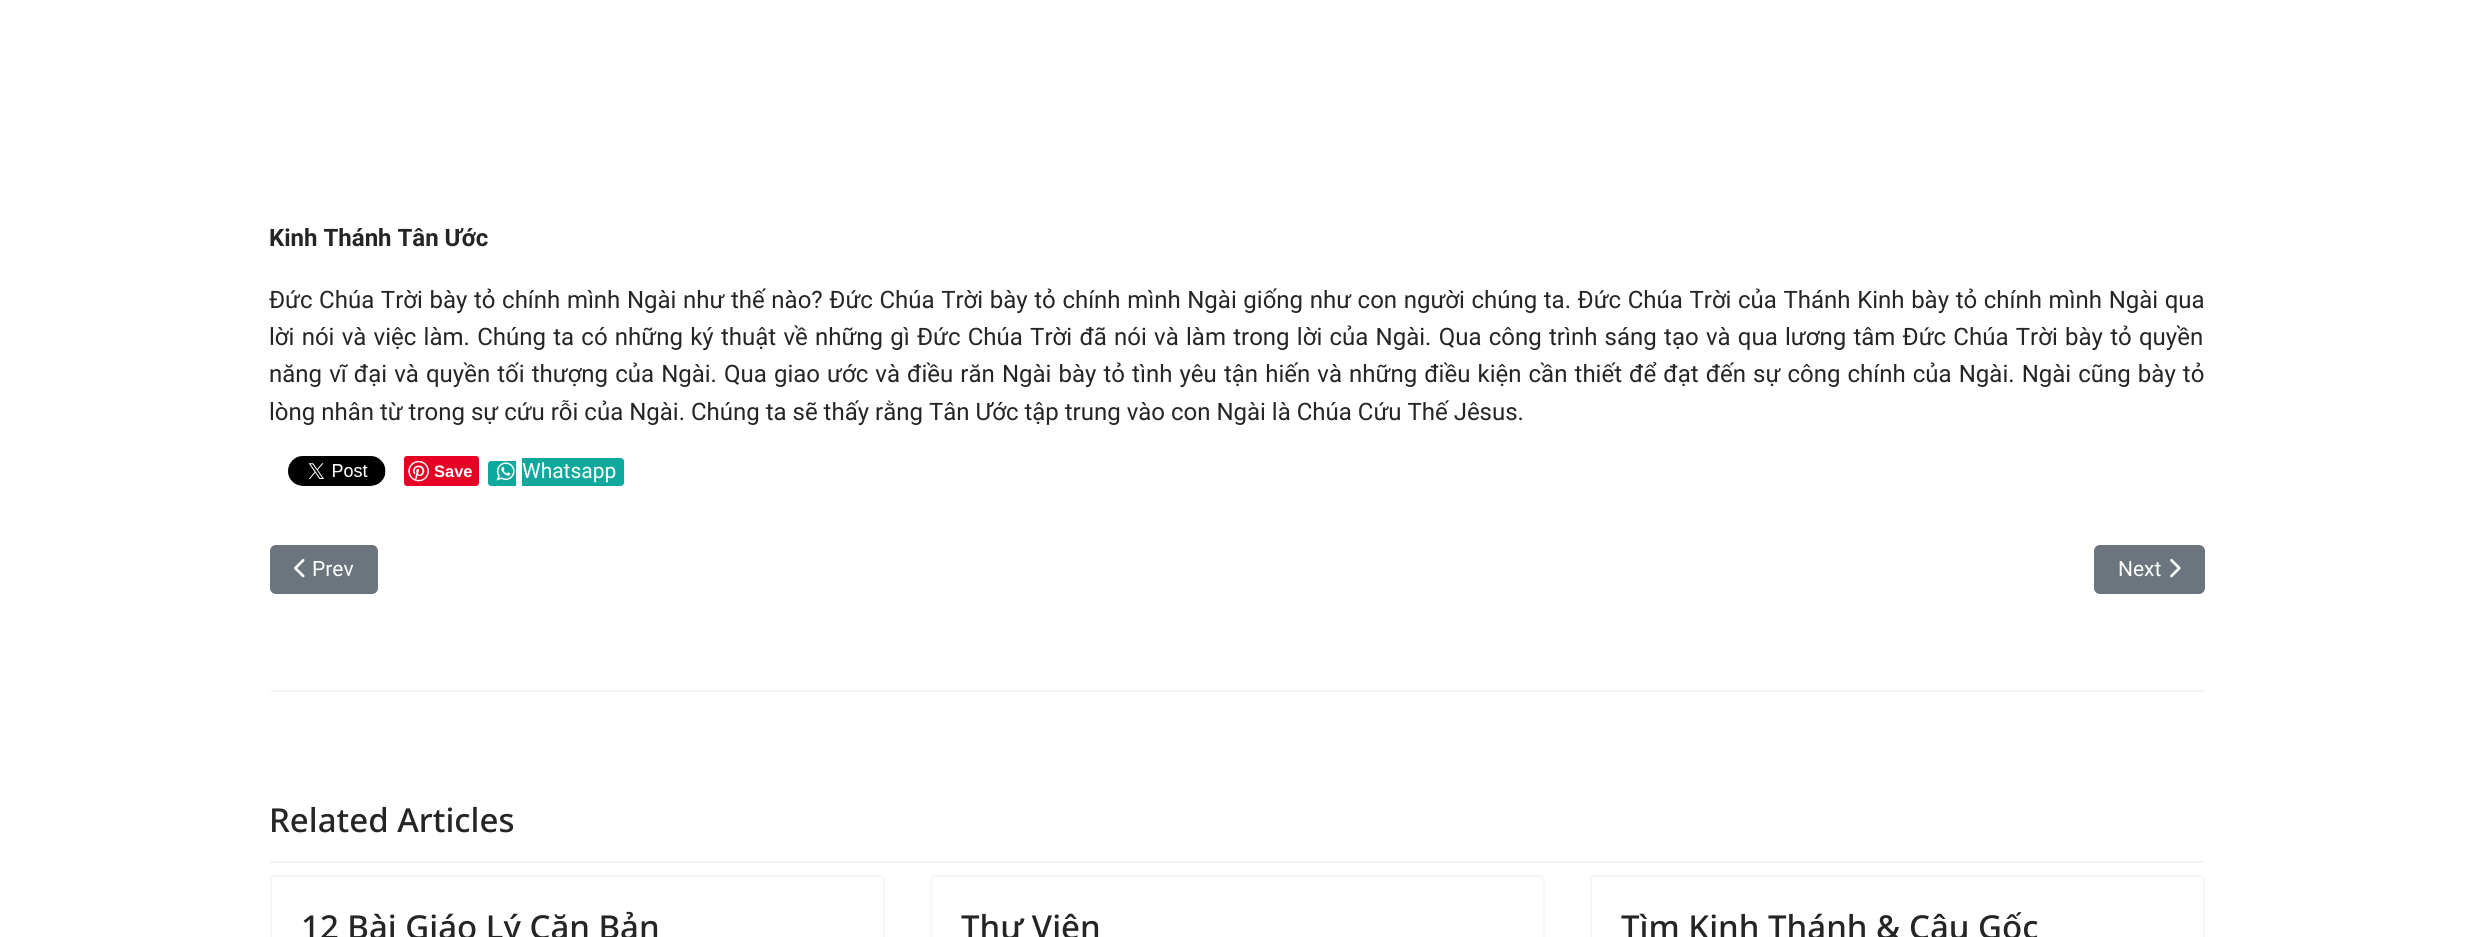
import math
import cairo

surface = cairo.ImageSurface(cairo.FORMAT_RGB24, 2473, 937)
ctx = cairo.Context(surface)
options = cairo.FontOptions()
options.set_hint_metrics(cairo.HINT_METRICS_OFF)
options.set_hint_style(cairo.HINT_STYLE_NONE)
ctx.set_font_options(options)
ctx.set_miter_limit(4)


def spaced_text(x, y, s, letter, word):
    ctx.move_to(x, y)
    for ch in s:
        ctx.show_text(ch)
        ctx.rel_move_to(letter + word * (ch == ' '), 0)


def round_rect(x, y, w, h, r):
    ctx.new_sub_path()
    for i, (u, v) in enumerate([(x + w - r, y + h - r), (x + r, y + h - r), (x + r, y + r), (x + w - r, y + r)]):
        ctx.arc(u, v, r, i * math.pi / 2, (i + 1) * math.pi / 2)
    ctx.close_path()


def picture(path, x, y, w, h):
    ctx.save()
    ctx.set_source_surface(cairo.ImageSurface.create_from_png(path), x, y)
    ctx.rectangle(x, y, w, h)
    ctx.fill()
    ctx.restore()


ctx.set_source_rgb(1, 1, 1)
ctx.paint()
ctx.select_font_face("Roboto", cairo.FONT_SLANT_NORMAL, cairo.FONT_WEIGHT_BOLD)
ctx.set_font_size(24)
ctx.set_source_rgb(0.145, 0.145, 0.145)
ctx.move_to(269, 246)
ctx.show_text("Kinh Thánh Tân Ước")
ctx.select_font_face("Roboto")
spaced_text(269, 308, "Đức Chúa Trời bày tỏ chính mình Ngài như thế nào? Đức Chúa Trời bày tỏ chính mình Ngài giống như con người chúng ta. Đức Chúa Trời của Thánh Kinh bày tỏ chính mình Ngài qua", 0, 0.65)
spaced_text(269, 345, "lời nói và việc làm. Chúng ta có những ký thuật về những gì Đức Chúa Trời đã nói và làm trong lời của Ngài. Qua công trình sáng tạo và qua lương tâm Đức Chúa Trời bày tỏ quyền", 0, 1.3)
spaced_text(269, 382, "năng vĩ đại và quyền tối thượng của Ngài. Qua giao ước và điều răn Ngài bày tỏ tình yêu tận hiến và những điều kiện cần thiết để đạt đến sự công chính của Ngài. Ngài cũng bày tỏ", 0, 1.15)
ctx.move_to(269, 420)
ctx.show_text("lòng nhân từ trong sự cứu rỗi của Ngài. Chúng ta sẽ thấy rằng Tân Ước tập trung vào con Ngài là Chúa Cứu Thế Jêsus.")
picture("img1.png", 288, 456, 98, 30)
ctx.set_source_rgb(0.902, 0, 0.137)
round_rect(404, 456, 75, 30, 3)
ctx.fill()
picture("img2.png", 408, 461, 21, 21)
ctx.select_font_face("Liberation Sans", cairo.FONT_SLANT_NORMAL, cairo.FONT_WEIGHT_BOLD)
ctx.set_font_size(16.5)
ctx.set_source_rgb(1, 1, 1)
ctx.move_to(434, 477)
ctx.show_text("Save")
ctx.set_source_rgb(0.059, 0.659, 0.616)
ctx.new_path()
ctx.move_to(491, 461)
ctx.line_to(516, 461)
ctx.line_to(516, 486)
ctx.line_to(491, 486)
ctx.curve_to(489.5, 486, 488, 484.5, 488, 483)
ctx.line_to(488, 464)
ctx.curve_to(488, 462.5, 489.5, 461, 491, 461)
ctx.close_path()
ctx.fill()
picture("img3.png", 496, 462, 19, 19)
ctx.new_path()
ctx.move_to(522, 458)
ctx.line_to(621, 458)
ctx.curve_to(622.5, 458, 624, 459.5, 624, 461)
ctx.line_to(624, 483)
ctx.curve_to(624, 484.5, 622.5, 486, 621, 486)
ctx.line_to(522, 486)
ctx.close_path()
ctx.fill()
ctx.select_font_face("Roboto")
ctx.set_font_size(21)
ctx.set_source_rgb(1, 1, 1)
ctx.move_to(522, 478)
ctx.show_text("Whatsapp")
ctx.set_source_rgb(0.424, 0.459, 0.49)
round_rect(271, 546, 106, 47, 5)
ctx.fill_preserve()
ctx.stroke()
picture("img4.png", 294, 559, 11, 19)
ctx.set_source_rgb(1, 1, 1)
ctx.move_to(312, 576)
ctx.show_text("Prev")
ctx.set_source_rgb(0.424, 0.459, 0.49)
round_rect(2095, 546, 109, 47, 5)
ctx.fill_preserve()
ctx.stroke()
ctx.set_source_rgb(1, 1, 1)
ctx.move_to(2118, 576)
ctx.show_text("Next")
picture("img5.png", 2170, 559, 11, 19)
ctx.set_source_rgb(0.961, 0.961, 0.961)
ctx.rectangle(270, 690, 1935, 2)
ctx.fill()
ctx.set_source_rgb(0.953, 0.953, 0.953)
ctx.rectangle(270, 861, 1935, 2)
ctx.fill()
ctx.select_font_face("Noto Sans Medium")
ctx.set_font_size(33)
ctx.set_source_rgb(0.145, 0.145, 0.145)
ctx.move_to(269, 832)
ctx.show_text("Related Articles")
round_rect(271, 876, 613, 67, 4)
ctx.set_source_rgb(0.961, 0.961, 0.961)
ctx.stroke()
ctx.set_source_rgb(0.145, 0.145, 0.145)
ctx.move_to(301, 939)
ctx.show_text("12 Bài Giáo Lý Căn Bản")
round_rect(931, 876, 613, 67, 4)
ctx.set_source_rgb(0.961, 0.961, 0.961)
ctx.stroke()
ctx.set_source_rgb(0.145, 0.145, 0.145)
ctx.move_to(961, 939)
ctx.show_text("Thư Viện")
round_rect(1591, 876, 613, 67, 4)
ctx.set_source_rgb(0.961, 0.961, 0.961)
ctx.stroke()
ctx.set_source_rgb(0.145, 0.145, 0.145)
ctx.move_to(1621, 939)
ctx.show_text("Tìm Kinh Thánh & Câu Gốc")
surface.write_to_png("page.png")
